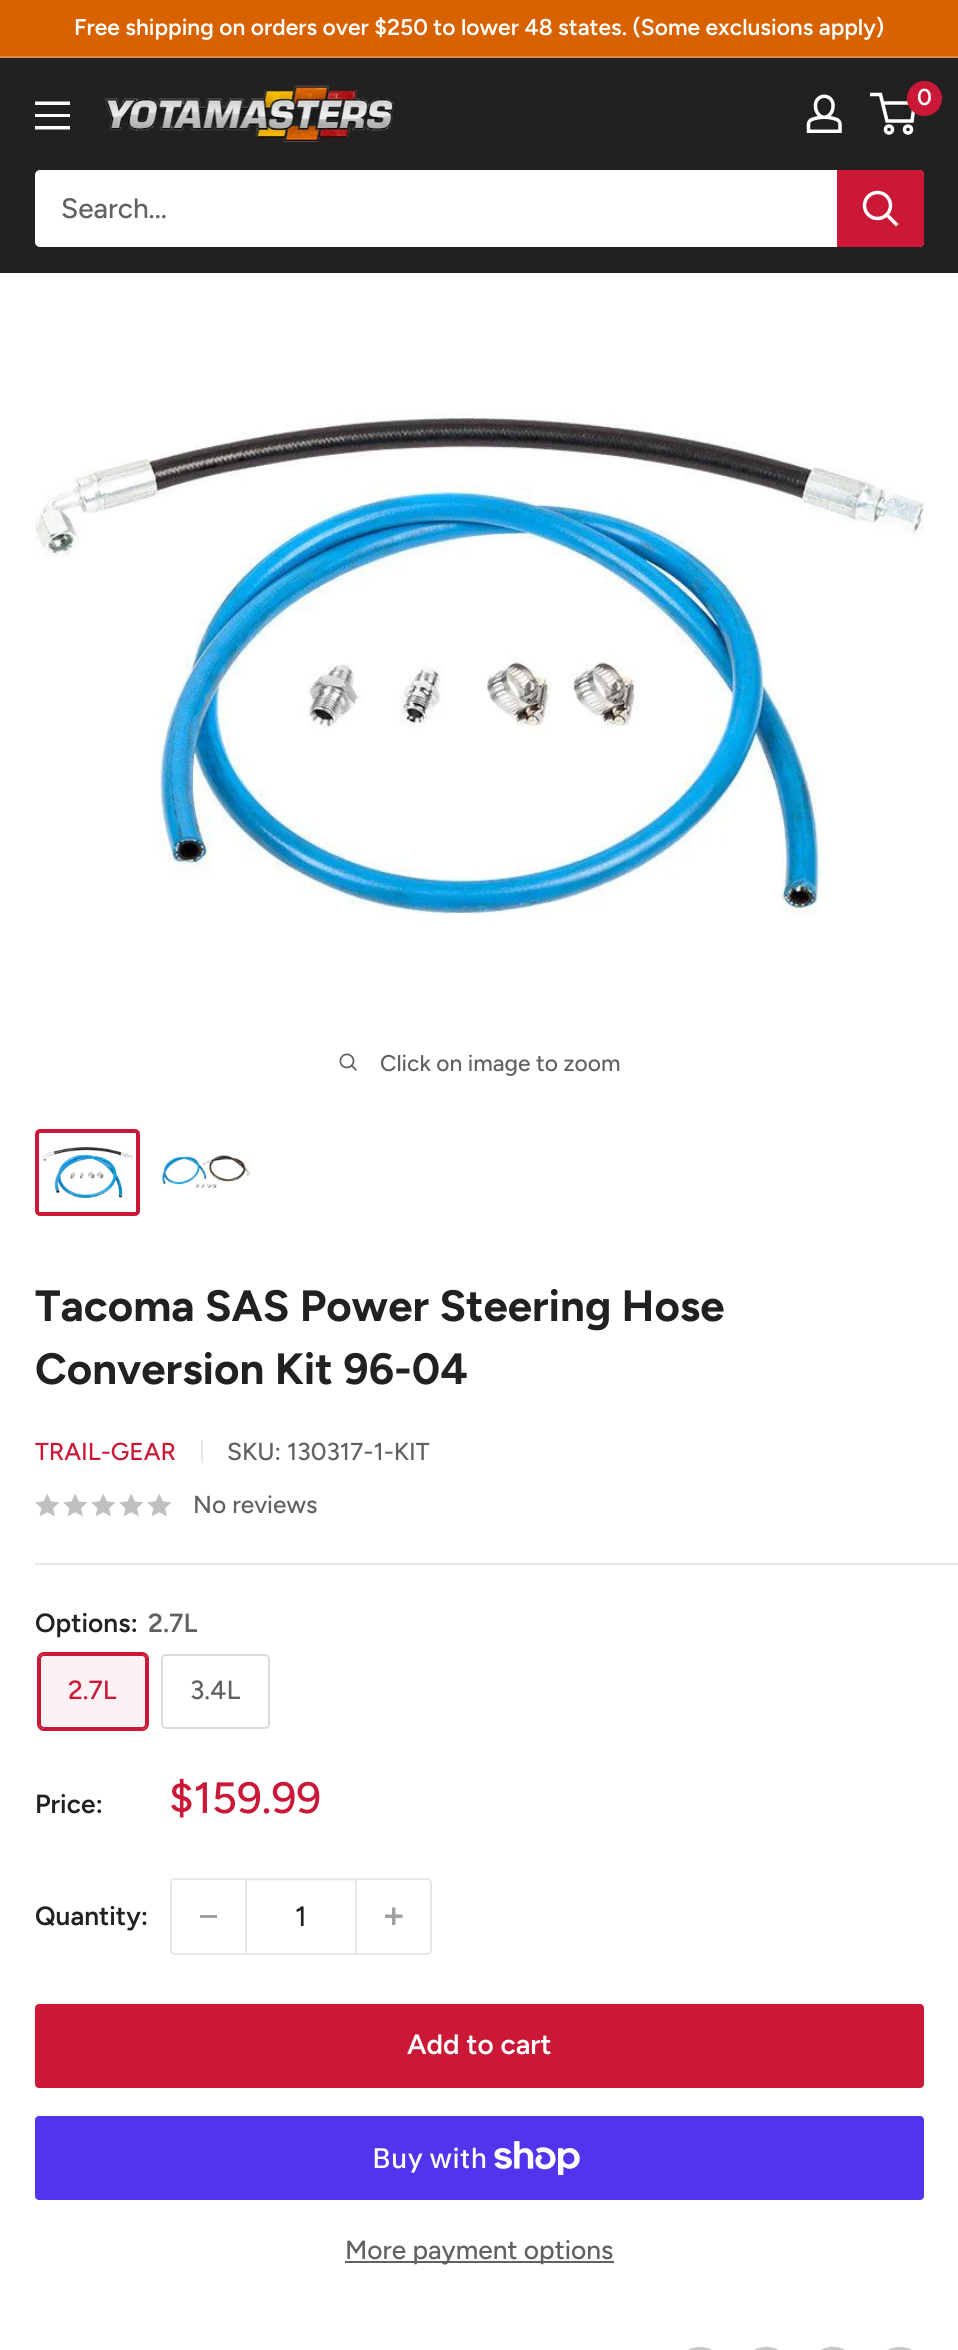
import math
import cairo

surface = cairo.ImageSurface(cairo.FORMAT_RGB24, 958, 2350)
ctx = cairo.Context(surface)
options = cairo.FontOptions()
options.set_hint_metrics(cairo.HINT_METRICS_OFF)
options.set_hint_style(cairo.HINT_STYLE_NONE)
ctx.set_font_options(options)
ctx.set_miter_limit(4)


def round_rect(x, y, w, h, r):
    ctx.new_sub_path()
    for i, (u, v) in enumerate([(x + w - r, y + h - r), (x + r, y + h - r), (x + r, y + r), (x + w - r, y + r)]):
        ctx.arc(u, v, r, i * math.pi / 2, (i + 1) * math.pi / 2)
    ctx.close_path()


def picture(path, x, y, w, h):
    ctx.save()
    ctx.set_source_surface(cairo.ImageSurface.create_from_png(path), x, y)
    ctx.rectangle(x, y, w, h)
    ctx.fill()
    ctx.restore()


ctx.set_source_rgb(0.847, 0.384, 0)
ctx.paint()
ctx.set_source_rgb(0.867, 0.541, 0.275)
ctx.rectangle(0, 56, 958, 2)
ctx.fill()
ctx.select_font_face("Figtree SemiBold")
ctx.set_font_size(22.75)
ctx.set_source_rgb(1, 1, 1)
ctx.move_to(74, 35)
ctx.show_text("Free shipping on orders over $250 to lower 48 states. (Some exclusions apply)")
ctx.set_source_rgb(0.133, 0.125, 0.129)
ctx.rectangle(0, 58, 958, 215)
ctx.fill()
picture("img1.png", 105, 85, 289, 57)
picture("img2.png", 806, 94, 36, 39)
ctx.arc(889, 129.5, 3.5, 0, 2 * math.pi)
ctx.set_source_rgb(1, 1, 1)
ctx.set_line_width(3.5)
ctx.stroke()
ctx.arc(908, 129.5, 3.5, 0, 2 * math.pi)
ctx.stroke()
ctx.new_path()
ctx.move_to(882.5, 103)
ctx.line_to(914.5, 103)
ctx.line_to(912, 121)
ctx.line_to(887, 121)
ctx.line_to(880.5, 94.5)
ctx.line_to(870, 94.5)
ctx.stroke()
ctx.set_source_rgb(0.796, 0.094, 0.212)
ctx.arc(924.5, 98.5, 17.5, 0, 2 * math.pi)
ctx.fill()
ctx.set_font_size(23)
ctx.set_source_rgb(1, 1, 1)
ctx.move_to(917, 105)
ctx.show_text("0")
ctx.set_fill_rule(cairo.FILL_RULE_EVEN_ODD)
ctx.new_path()
ctx.move_to(35, 126)
ctx.line_to(70, 126)
ctx.line_to(70, 129.5)
ctx.line_to(35, 129.5)
ctx.close_path()
ctx.move_to(35, 101.5)
ctx.line_to(70, 101.5)
ctx.line_to(70, 105)
ctx.line_to(35, 105)
ctx.close_path()
ctx.move_to(35, 114)
ctx.line_to(70, 114)
ctx.line_to(70, 117)
ctx.line_to(35, 117)
ctx.close_path()
ctx.fill()
round_rect(35, 170, 889, 77, 5)
ctx.fill()
ctx.select_font_face("Figtree Medium")
ctx.set_font_size(28)
ctx.set_source_rgb(0.38, 0.38, 0.38)
ctx.move_to(61, 218)
ctx.show_text("Search...")
ctx.set_source_rgb(0.796, 0.094, 0.212)
ctx.new_path()
ctx.move_to(837, 170)
ctx.line_to(919, 170)
ctx.curve_to(922, 170, 924, 172, 924, 175)
ctx.line_to(924, 242)
ctx.curve_to(924, 245, 922, 247, 919, 247)
ctx.line_to(837, 247)
ctx.close_path()
ctx.fill()
ctx.new_path()
ctx.move_to(896, 224)
ctx.line_to(887, 215)
ctx.set_source_rgb(1, 1, 1)
ctx.set_line_cap(cairo.LINE_CAP_SQUARE)
ctx.stroke()
ctx.arc(877.5, 205.5, 13, 0, 2 * math.pi)
ctx.set_line_cap(cairo.LINE_CAP_BUTT)
ctx.stroke()
ctx.rectangle(0, 273, 958, 2077)
ctx.fill()
picture("img3.png", 35, 414, 889, 500)
picture("img4.png", 339, 1053, 18, 18)
ctx.set_font_size(22.75)
ctx.set_source_rgb(0.38, 0.38, 0.38)
ctx.move_to(380, 1071)
ctx.show_text("Click on image to zoom")
round_rect(37, 1131, 101, 83, 3)
ctx.set_source_rgb(0.796, 0.094, 0.212)
ctx.set_line_width(4)
ctx.stroke()
picture("img5.png", 42, 1147, 91, 52)
picture("img6.png", 161, 1153, 90, 36)
ctx.select_font_face("Figtree", cairo.FONT_SLANT_NORMAL, cairo.FONT_WEIGHT_BOLD)
ctx.set_font_size(43.75)
ctx.set_source_rgb(0.133, 0.125, 0.129)
ctx.move_to(35, 1321)
ctx.show_text("Tacoma SAS Power Steering Hose")
ctx.move_to(35, 1384)
ctx.show_text("Conversion Kit 96-04")
ctx.select_font_face("Figtree Medium")
ctx.set_font_size(24.5)
ctx.set_source_rgb(0.796, 0.094, 0.212)
ctx.move_to(35, 1460)
ctx.show_text("TRAIL-GEAR")
ctx.set_source_rgb(0.91, 0.91, 0.91)
ctx.rectangle(201, 1440, 2, 23)
ctx.fill()
ctx.set_source_rgb(0.38, 0.38, 0.38)
ctx.move_to(227, 1460)
ctx.show_text("SKU: 130317-1-KIT")
picture("img7.png", 35, 1493, 25, 24)
picture("img7.png", 63, 1493, 25, 24)
picture("img7.png", 91, 1493, 25, 24)
picture("img7.png", 119, 1493, 25, 24)
picture("img7.png", 147, 1493, 25, 24)
ctx.move_to(193, 1513)
ctx.show_text("No reviews")
ctx.set_source_rgb(0.91, 0.91, 0.91)
ctx.rectangle(35, 1563, 923, 2)
ctx.fill()
ctx.select_font_face("Figtree SemiBold")
ctx.set_font_size(26.25)
ctx.set_source_rgb(0.133, 0.125, 0.129)
ctx.move_to(35, 1632)
ctx.show_text("Options:")
ctx.set_source_rgb(0.38, 0.38, 0.38)
ctx.move_to(148, 1632)
ctx.show_text("2.7L")
round_rect(38, 1653, 110, 77, 6)
ctx.set_source_rgb(0.796, 0.094, 0.212)
ctx.set_line_width(2)
ctx.stroke()
ctx.set_source_rgba(0.796, 0.094, 0.212, 0.06)
ctx.rectangle(39, 1654, 108, 75)
ctx.fill()
round_rect(40, 1655, 106, 73, 4)
ctx.set_source_rgb(0.796, 0.094, 0.212)
ctx.stroke()
ctx.select_font_face("Figtree Medium")
ctx.move_to(68, 1699)
ctx.show_text("2.7L")
round_rect(162, 1655, 107, 73, 4)
ctx.set_source_rgb(0.859, 0.859, 0.859)
ctx.stroke()
ctx.set_source_rgb(0.38, 0.38, 0.38)
ctx.move_to(190, 1699)
ctx.show_text("3.4L")
ctx.select_font_face("Figtree SemiBold")
ctx.set_source_rgb(0.133, 0.125, 0.129)
ctx.move_to(35, 1813)
ctx.show_text("Price:")
ctx.select_font_face("Figtree Medium")
ctx.set_font_size(43.75)
ctx.set_source_rgb(0.796, 0.094, 0.212)
ctx.move_to(169, 1813)
ctx.show_text("$159.99")
ctx.select_font_face("Figtree SemiBold")
ctx.set_font_size(26.25)
ctx.set_source_rgb(0.133, 0.125, 0.129)
ctx.move_to(35, 1925)
ctx.show_text("Quantity:")
round_rect(171, 1879, 260, 75, 4)
ctx.set_source_rgb(0.91, 0.91, 0.91)
ctx.stroke()
ctx.set_source_rgb(0.627, 0.627, 0.627)
ctx.rectangle(200, 1915, 17, 3)
ctx.fill()
ctx.set_source_rgb(0.965, 0.965, 0.965)
ctx.rectangle(247, 1880, 108, 2)
ctx.fill()
ctx.set_source_rgb(0.91, 0.91, 0.91)
ctx.rectangle(355, 1880, 2, 73)
ctx.fill()
ctx.rectangle(245, 1880, 2, 73)
ctx.fill()
ctx.select_font_face("Figtree Medium")
ctx.set_font_size(28)
ctx.set_source_rgb(0.133, 0.125, 0.129)
ctx.move_to(295, 1926)
ctx.show_text("1")
picture("img8.png", 385, 1907, 18, 18)
ctx.set_source_rgb(0.796, 0.094, 0.212)
round_rect(35, 2004, 889, 84, 4)
ctx.fill()
ctx.select_font_face("Figtree SemiBold")
ctx.set_source_rgb(1, 1, 1)
ctx.move_to(407, 2054)
ctx.show_text("Add to cart")
ctx.set_source_rgb(0.329, 0.2, 0.922)
round_rect(35, 2116, 889, 84, 4)
ctx.fill()
ctx.select_font_face("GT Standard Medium")
ctx.set_source_rgb(1, 1, 1)
ctx.move_to(372, 2168)
ctx.show_text("Buy with")
picture("img9.png", 494, 2141, 86, 34)
ctx.set_source_rgb(0.38, 0.38, 0.38)
ctx.rectangle(345, 2261, 269, 2)
ctx.fill()
ctx.select_font_face("Figtree Medium")
ctx.set_font_size(26.25)
ctx.move_to(345, 2259)
ctx.show_text("More payment options")
ctx.set_source_rgb(0.784, 0.784, 0.784)
ctx.new_path()
ctx.move_to(700, 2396)
ctx.curve_to(668, 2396, 668, 2347, 700, 2347)
ctx.curve_to(732, 2347, 732, 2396, 700, 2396)
ctx.close_path()
ctx.move_to(705, 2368)
ctx.line_to(702, 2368)
ctx.curve_to(702, 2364, 701, 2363, 705, 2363)
ctx.line_to(705, 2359)
ctx.curve_to(698, 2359, 697, 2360, 697, 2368)
ctx.line_to(695, 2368)
ctx.line_to(695, 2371)
ctx.line_to(697, 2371)
ctx.line_to(697, 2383)
ctx.line_to(702, 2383)
ctx.line_to(702, 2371)
ctx.line_to(705, 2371)
ctx.close_path()
ctx.fill()
picture("img10.png", 754, 2346, 25, 4)
picture("img11.png", 821, 2346, 24, 4)
ctx.set_fill_rule(cairo.FILL_RULE_WINDING)
ctx.new_path()
ctx.move_to(900, 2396)
ctx.curve_to(867, 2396, 867, 2347, 900, 2347)
ctx.curve_to(932, 2347, 932, 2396, 900, 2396)
ctx.close_path()
ctx.move_to(894, 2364)
ctx.line_to(905, 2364)
ctx.line_to(900, 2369)
ctx.close_path()
ctx.move_to(908, 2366)
ctx.line_to(908, 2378)
ctx.line_to(891, 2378)
ctx.line_to(891, 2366)
ctx.line_to(900, 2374)
ctx.close_path()
ctx.move_to(912, 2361)
ctx.line_to(887, 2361)
ctx.line_to(887, 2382)
ctx.line_to(912, 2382)
ctx.close_path()
ctx.fill()
surface.write_to_png("page.png")
